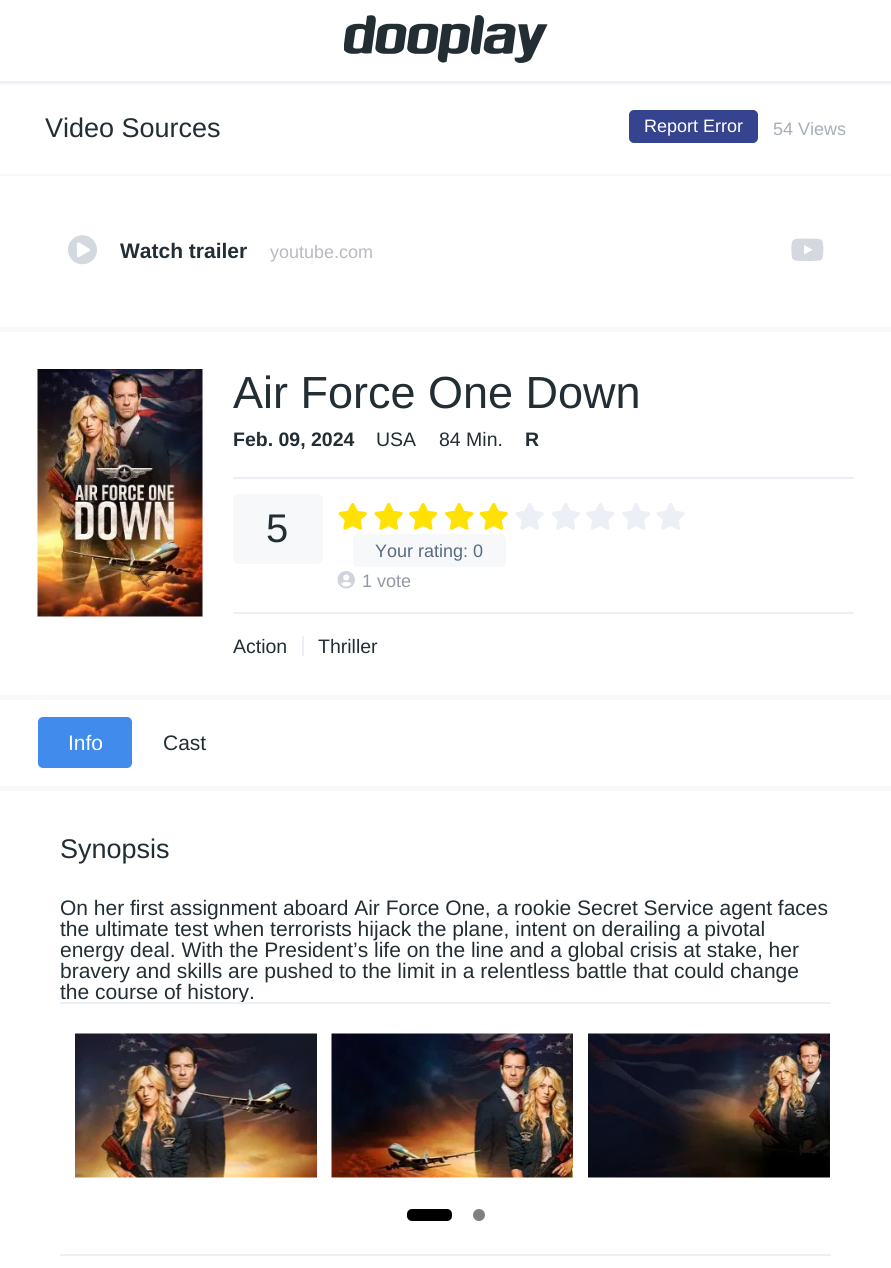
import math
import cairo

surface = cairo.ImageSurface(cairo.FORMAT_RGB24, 891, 1268)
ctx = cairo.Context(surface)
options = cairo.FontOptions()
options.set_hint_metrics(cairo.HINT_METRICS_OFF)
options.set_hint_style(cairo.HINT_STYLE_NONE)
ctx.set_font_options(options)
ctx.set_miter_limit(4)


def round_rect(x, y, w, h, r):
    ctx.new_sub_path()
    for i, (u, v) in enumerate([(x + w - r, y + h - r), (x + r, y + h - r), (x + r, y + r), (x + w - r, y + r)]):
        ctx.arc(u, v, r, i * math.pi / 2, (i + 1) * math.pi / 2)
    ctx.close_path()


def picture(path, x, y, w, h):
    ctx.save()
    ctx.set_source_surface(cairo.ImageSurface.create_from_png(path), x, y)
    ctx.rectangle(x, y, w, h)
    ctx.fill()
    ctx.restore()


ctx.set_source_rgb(1, 1, 1)
ctx.paint()
ctx.set_source_rgb(0.925, 0.937, 0.961)
ctx.rectangle(0, 81, 891, 2)
ctx.fill()
picture("img1.png", 344, 15, 204, 48)
ctx.set_source_rgb(0.961, 0.969, 0.98)
ctx.rectangle(0, 327, 891, 5)
ctx.fill()
ctx.rectangle(0, 83, 891, 2)
ctx.fill()
ctx.rectangle(0, 174, 891, 2)
ctx.fill()
ctx.select_font_face("Liberation Sans")
ctx.set_font_size(27)
ctx.set_source_rgb(0.133, 0.176, 0.204)
ctx.move_to(45, 137)
ctx.show_text("Video Sources")
ctx.set_source_rgb(0.212, 0.263, 0.557)
round_rect(629, 110, 129, 33, 5)
ctx.fill()
ctx.set_font_size(18)
ctx.set_source_rgb(1, 1, 1)
ctx.move_to(644, 132)
ctx.show_text("Report Error")
ctx.set_source_rgb(0.655, 0.682, 0.725)
ctx.move_to(773, 135)
ctx.show_text("54 Views")
picture("img2.png", 68, 235, 29, 30)
ctx.select_font_face("Liberation Sans", cairo.FONT_SLANT_NORMAL, cairo.FONT_WEIGHT_BOLD)
ctx.set_font_size(21)
ctx.set_source_rgb(0.133, 0.176, 0.204)
ctx.move_to(120, 258)
ctx.show_text("Watch trailer")
ctx.select_font_face("Liberation Sans")
ctx.set_font_size(18)
ctx.set_source_rgb(0.722, 0.729, 0.753)
ctx.move_to(270, 258)
ctx.show_text("youtube.com")
picture("img3.png", 791, 238, 33, 23)
ctx.set_source_rgb(0.961, 0.969, 0.98)
ctx.rectangle(0, 695, 891, 5)
ctx.fill()
picture("img4.png", 37, 369, 166, 248)
ctx.set_font_size(45)
ctx.set_source_rgb(0.133, 0.176, 0.204)
ctx.move_to(233, 408)
ctx.show_text("Air Force One Down")
ctx.select_font_face("Liberation Sans", cairo.FONT_SLANT_NORMAL, cairo.FONT_WEIGHT_BOLD)
ctx.set_font_size(19.5)
ctx.move_to(233, 446)
ctx.show_text("Feb. 09, 2024")
ctx.select_font_face("Liberation Sans")
ctx.move_to(376, 446)
ctx.show_text("USA")
ctx.move_to(439, 446)
ctx.show_text("84 Min.")
ctx.select_font_face("Liberation Sans", cairo.FONT_SLANT_NORMAL, cairo.FONT_WEIGHT_BOLD)
ctx.move_to(525, 446)
ctx.show_text("R")
ctx.set_source_rgb(0.925, 0.937, 0.961)
ctx.rectangle(233, 477, 621, 2)
ctx.fill()
ctx.rectangle(233, 612, 621, 2)
ctx.fill()
picture("img5.png", 338, 502, 29, 28)
picture("img5.png", 374, 502, 29, 28)
picture("img6.png", 409, 502, 29, 28)
picture("img6.png", 445, 502, 29, 28)
picture("img5.png", 479, 502, 29, 28)
picture("img7.png", 515, 503, 29, 27)
picture("img7.png", 551, 503, 29, 27)
picture("img8.png", 586, 503, 29, 27)
picture("img8.png", 622, 503, 29, 27)
picture("img7.png", 656, 503, 29, 27)
ctx.set_source_rgb(0.961, 0.969, 0.98)
round_rect(233, 494, 90, 70, 5)
ctx.fill()
ctx.select_font_face("Liberation Sans")
ctx.set_font_size(40)
ctx.set_source_rgb(0.133, 0.176, 0.204)
ctx.move_to(266, 542)
ctx.show_text("5")
picture("img9.png", 337, 571, 18, 18)
ctx.set_font_size(18)
ctx.set_source_rgb(0.573, 0.592, 0.635)
ctx.move_to(362, 587)
ctx.show_text("1 vote")
ctx.set_source_rgb(0.961, 0.969, 0.98)
round_rect(353, 534, 153, 33, 5)
ctx.fill()
ctx.set_source_rgb(0.345, 0.424, 0.49)
ctx.move_to(375, 557)
ctx.show_text("Your rating: 0")
ctx.set_font_size(19.5)
ctx.set_source_rgb(0.133, 0.176, 0.204)
ctx.move_to(233, 653)
ctx.show_text("Action")
ctx.set_source_rgb(0.925, 0.937, 0.961)
ctx.rectangle(302, 636, 2, 20)
ctx.fill()
ctx.set_source_rgb(0.133, 0.176, 0.204)
ctx.move_to(318, 653)
ctx.show_text("Thriller")
ctx.set_source_rgb(0.961, 0.969, 0.98)
ctx.rectangle(0, 786, 891, 5)
ctx.fill()
ctx.set_source_rgb(0.251, 0.545, 0.918)
round_rect(38, 717, 94, 51, 5)
ctx.fill()
ctx.set_font_size(21)
ctx.set_source_rgb(1, 1, 1)
ctx.move_to(68, 750)
ctx.show_text("Info")
ctx.set_source_rgb(0.133, 0.176, 0.204)
ctx.move_to(163, 750)
ctx.show_text("Cast")
ctx.set_font_size(27)
ctx.move_to(60, 858)
ctx.show_text("Synopsis")
ctx.set_source_rgb(0.925, 0.937, 0.961)
ctx.rectangle(60, 1254, 771, 2)
ctx.fill()
ctx.set_font_size(21)
ctx.set_source_rgb(0.133, 0.176, 0.204)
ctx.move_to(60, 915)
ctx.show_text("On her first assignment aboard Air Force One, a rookie Secret Service agent faces")
ctx.move_to(60, 936)
ctx.show_text("the ultimate test when terrorists hijack the plane, intent on derailing a pivotal")
ctx.move_to(60, 957)
ctx.show_text("energy deal. With the President’s life on the line and a global crisis at stake, her")
ctx.move_to(60, 978)
ctx.show_text("bravery and skills are pushed to the limit in a relentless battle that could change")
ctx.move_to(60, 999)
ctx.show_text("the course of history.")
ctx.set_source_rgb(0.925, 0.937, 0.961)
ctx.rectangle(60, 1002, 771, 2)
ctx.fill()
picture("img10.png", 75, 1033, 242, 145)
picture("img11.png", 331, 1033, 242, 145)
picture("img12.png", 588, 1033, 242, 145)
ctx.set_source_rgb(0, 0, 0)
round_rect(407, 1209, 45, 12, 5)
ctx.fill()
ctx.set_source_rgb(0.502, 0.502, 0.502)
ctx.arc(479, 1215, 6, 0, 2 * math.pi)
ctx.fill()
surface.write_to_png("page.png")
